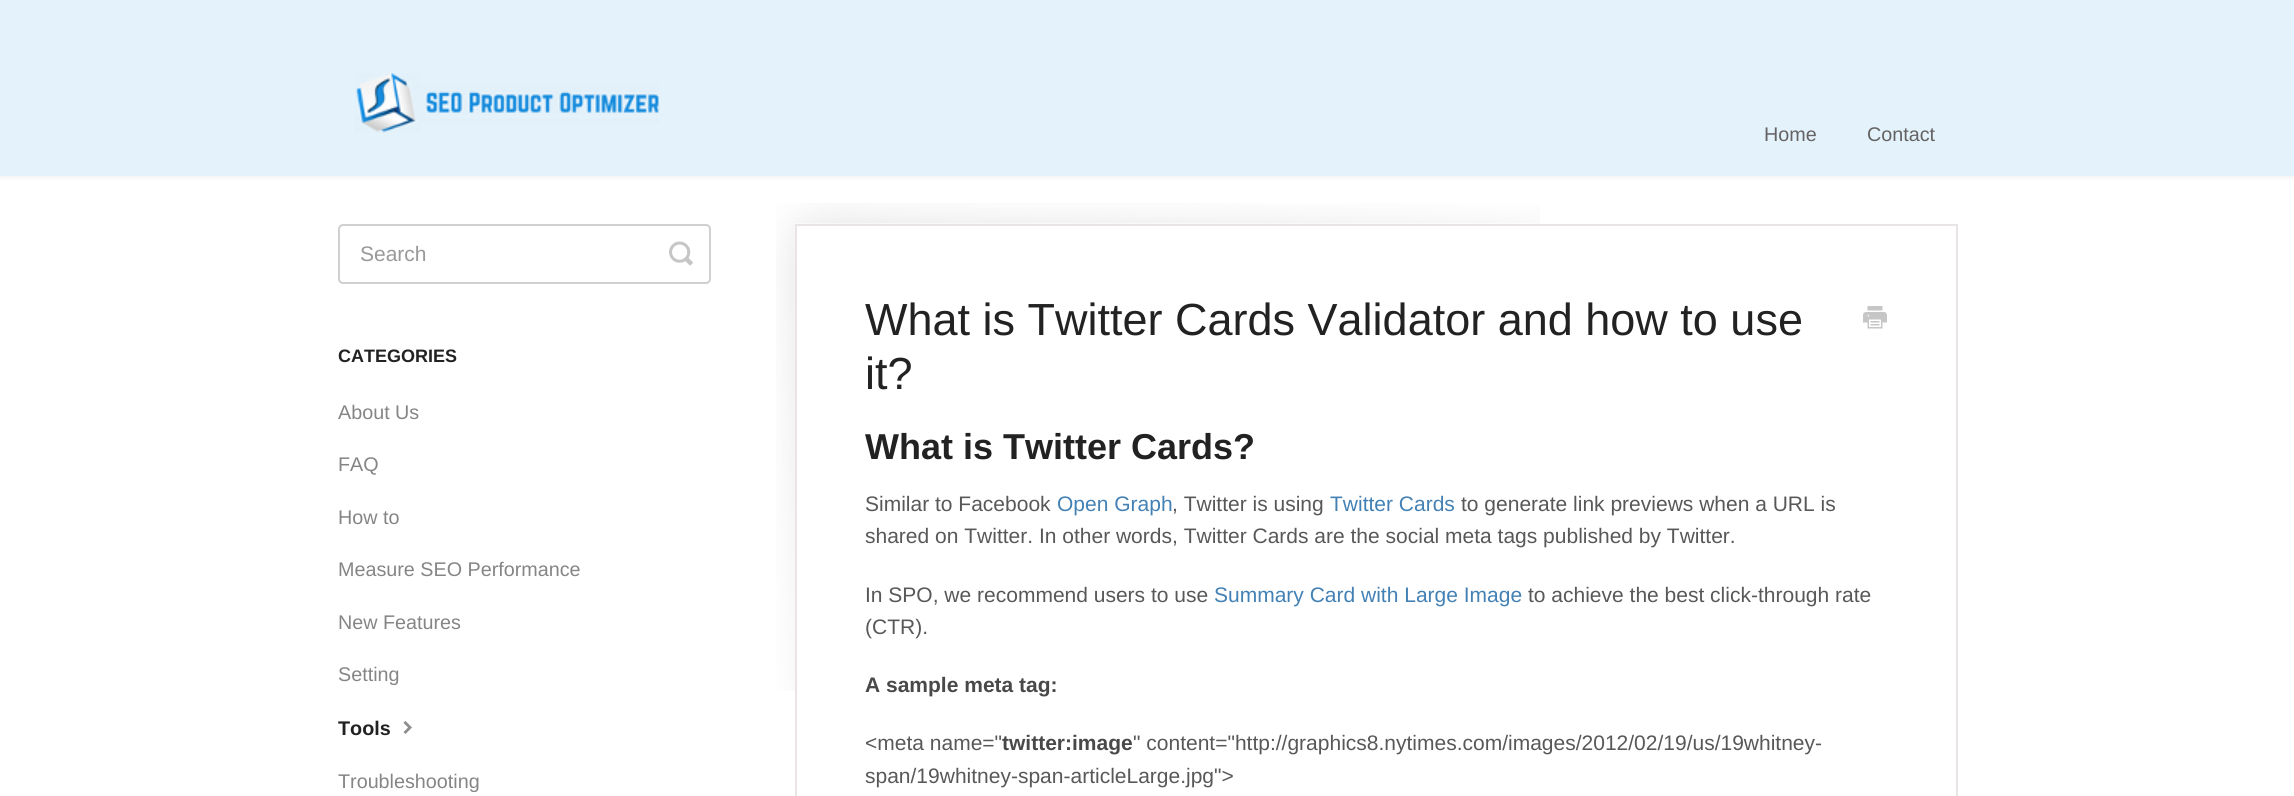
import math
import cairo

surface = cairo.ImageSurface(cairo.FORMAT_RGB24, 2294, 796)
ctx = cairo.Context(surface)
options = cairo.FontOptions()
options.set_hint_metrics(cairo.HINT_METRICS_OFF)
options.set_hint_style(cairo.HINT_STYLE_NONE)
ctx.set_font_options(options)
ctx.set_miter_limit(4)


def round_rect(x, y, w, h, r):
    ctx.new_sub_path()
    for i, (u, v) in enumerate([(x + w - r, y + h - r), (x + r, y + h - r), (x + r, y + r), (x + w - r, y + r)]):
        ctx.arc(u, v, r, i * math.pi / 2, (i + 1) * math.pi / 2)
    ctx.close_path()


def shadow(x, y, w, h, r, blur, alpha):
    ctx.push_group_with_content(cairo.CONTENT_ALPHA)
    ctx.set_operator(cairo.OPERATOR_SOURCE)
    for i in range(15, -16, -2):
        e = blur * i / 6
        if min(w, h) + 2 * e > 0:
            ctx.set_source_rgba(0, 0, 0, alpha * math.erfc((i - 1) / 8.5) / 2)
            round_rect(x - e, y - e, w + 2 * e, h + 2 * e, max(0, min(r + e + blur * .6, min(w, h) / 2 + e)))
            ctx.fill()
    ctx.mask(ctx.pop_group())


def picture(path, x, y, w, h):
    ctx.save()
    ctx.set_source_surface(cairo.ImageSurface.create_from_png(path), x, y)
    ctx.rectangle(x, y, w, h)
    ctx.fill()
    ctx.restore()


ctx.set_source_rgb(1, 1, 1)
ctx.paint()
ctx.set_source_rgb(0, 0, 0)
shadow(0, 2, 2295, 175, 0, 3, 0.07)
ctx.set_source_rgb(0.894, 0.949, 0.984)
ctx.rectangle(0, 0, 2294, 176)
ctx.fill()
picture("img1.png", 355, 73, 304, 60)
ctx.select_font_face("Liberation Sans")
ctx.set_font_size(19.75)
ctx.set_source_rgb(0.392, 0.388, 0.388)
ctx.move_to(1764, 141)
ctx.show_text("Home")
ctx.move_to(1867, 141)
ctx.show_text("Contact")
round_rect(339, 225, 371, 58, 4)
ctx.set_source_rgb(0.816, 0.816, 0.816)
ctx.stroke()
ctx.set_font_size(21)
ctx.set_source_rgb(0.6, 0.6, 0.6)
ctx.move_to(360, 261)
ctx.show_text("Search")
picture("img2.png", 669, 241, 24, 25)
ctx.select_font_face("Liberation Sans", cairo.FONT_SLANT_NORMAL, cairo.FONT_WEIGHT_BOLD)
ctx.set_font_size(18)
ctx.set_source_rgb(0.133, 0.133, 0.133)
ctx.move_to(338, 362)
ctx.show_text("CATEGORIES")
ctx.select_font_face("Liberation Sans")
ctx.set_font_size(19.75)
ctx.set_source_rgb(0.522, 0.522, 0.522)
ctx.move_to(338, 419)
ctx.show_text("About Us")
ctx.move_to(338, 471)
ctx.show_text("FAQ")
ctx.move_to(338, 524)
ctx.show_text("How to")
ctx.move_to(338, 576)
ctx.show_text("Measure SEO Performance")
ctx.move_to(338, 629)
ctx.show_text("New Features")
ctx.move_to(338, 681)
ctx.show_text("Setting")
ctx.select_font_face("Liberation Sans", cairo.FONT_SLANT_NORMAL, cairo.FONT_WEIGHT_BOLD)
ctx.set_source_rgb(0.133, 0.133, 0.133)
ctx.move_to(338, 735)
ctx.show_text("Tools")
picture("img3.png", 403, 721, 9, 13)
ctx.select_font_face("Liberation Sans")
ctx.set_source_rgb(0.522, 0.522, 0.522)
ctx.move_to(338, 788)
ctx.show_text("Troubleshooting")
picture("img4.png", 776, 203, 764, 488)
ctx.rectangle(796, 225, 1161, 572)
ctx.set_source_rgb(0.914, 0.898, 0.898)
ctx.stroke()
ctx.set_font_size(45)
ctx.set_source_rgb(0.133, 0.133, 0.133)
ctx.move_to(865, 335)
ctx.show_text("What is Twitter Cards Validator and how to use")
ctx.move_to(865, 389)
ctx.show_text("it?")
picture("img5.png", 1863, 306, 24, 23)
ctx.select_font_face("Liberation Sans", cairo.FONT_SLANT_NORMAL, cairo.FONT_WEIGHT_BOLD)
ctx.set_font_size(36)
ctx.move_to(865, 459)
ctx.show_text("What is Twitter Cards?")
ctx.select_font_face("Liberation Sans")
ctx.set_font_size(21)
ctx.set_source_rgb(0.345, 0.345, 0.345)
ctx.move_to(865, 511)
ctx.show_text("Similar to Facebook")
ctx.set_source_rgb(0.263, 0.506, 0.71)
ctx.move_to(1057, 511)
ctx.show_text("Open Graph")
ctx.set_source_rgb(0.345, 0.345, 0.345)
ctx.move_to(1172, 511)
ctx.show_text(", Twitter is using")
ctx.set_source_rgb(0.263, 0.506, 0.71)
ctx.move_to(1330, 511)
ctx.show_text("Twitter Cards")
ctx.set_source_rgb(0.345, 0.345, 0.345)
ctx.move_to(1461, 511)
ctx.show_text("to generate link previews when a URL is")
ctx.move_to(865, 543)
ctx.show_text("shared on Twitter. In other words, Twitter Cards are the social meta tags published by Twitter.")
ctx.move_to(865, 602)
ctx.show_text("In SPO, we recommend users to use")
ctx.set_source_rgb(0.263, 0.506, 0.71)
ctx.move_to(1214, 602)
ctx.show_text("Summary Card with Large Image")
ctx.set_source_rgb(0.345, 0.345, 0.345)
ctx.move_to(1528, 602)
ctx.show_text("to achieve the best click-through rate")
ctx.move_to(865, 634)
ctx.show_text("(CTR).")
ctx.select_font_face("Liberation Sans", cairo.FONT_SLANT_NORMAL, cairo.FONT_WEIGHT_BOLD)
ctx.set_source_rgb(0.286, 0.286, 0.286)
ctx.move_to(865, 692)
ctx.show_text("A sample meta tag:")
ctx.select_font_face("Liberation Sans")
ctx.set_source_rgb(0.345, 0.345, 0.345)
ctx.move_to(865, 750)
ctx.show_text("<meta name=\"")
ctx.select_font_face("Liberation Sans", cairo.FONT_SLANT_NORMAL, cairo.FONT_WEIGHT_BOLD)
ctx.set_source_rgb(0.286, 0.286, 0.286)
ctx.move_to(1002, 750)
ctx.show_text("twitter:image")
ctx.select_font_face("Liberation Sans")
ctx.set_source_rgb(0.345, 0.345, 0.345)
ctx.move_to(1133, 750)
ctx.show_text("\" content=\"http://graphics8.nytimes.com/images/2012/02/19/us/19whitney-")
ctx.move_to(865, 783)
ctx.show_text("span/19whitney-span-articleLarge.jpg\">")
surface.write_to_png("page.png")
